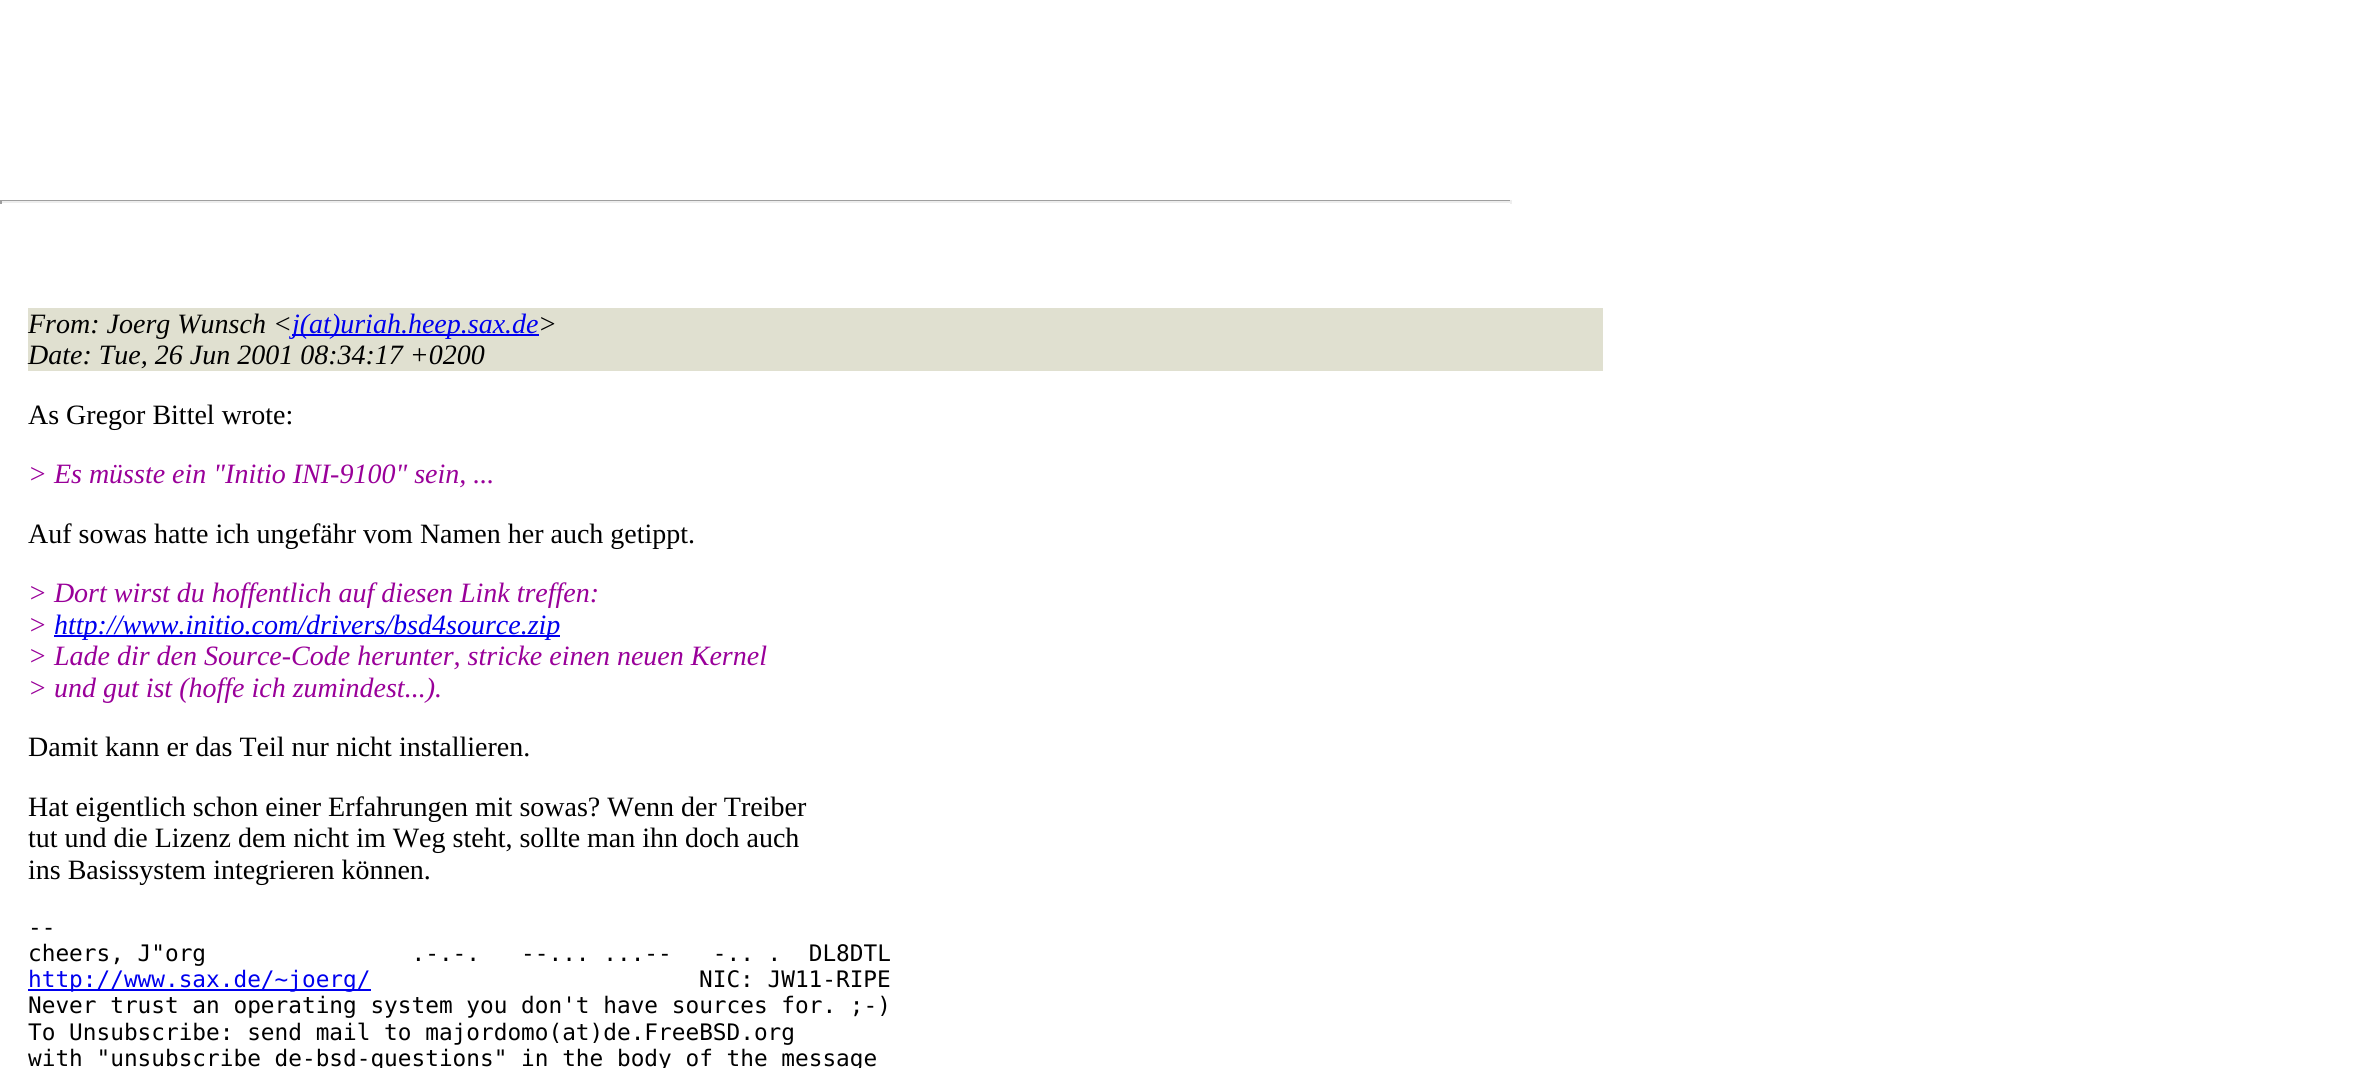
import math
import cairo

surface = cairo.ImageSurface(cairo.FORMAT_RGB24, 2380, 1068)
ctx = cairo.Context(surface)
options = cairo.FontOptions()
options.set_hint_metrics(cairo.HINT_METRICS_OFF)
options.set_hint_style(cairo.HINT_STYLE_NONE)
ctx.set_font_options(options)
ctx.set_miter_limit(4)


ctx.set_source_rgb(1, 1, 1)
ctx.paint()
ctx.set_source_rgb(0.624, 0.624, 0.624)
ctx.rectangle(0, 200, 1512, 1)
ctx.fill()
ctx.set_source_rgb(0.933, 0.933, 0.933)
ctx.rectangle(1510, 200, 2, 4)
ctx.fill()
ctx.rectangle(0, 201, 1512, 2)
ctx.fill()
ctx.set_source_rgb(0.624, 0.624, 0.624)
ctx.rectangle(0, 200, 2, 4)
ctx.fill()
ctx.set_source_rgb(0.878, 0.878, 0.816)
ctx.rectangle(28, 308, 1575, 63)
ctx.fill()
ctx.select_font_face("Liberation Serif", cairo.FONT_SLANT_ITALIC)
ctx.set_font_size(28)
ctx.set_source_rgb(0, 0, 0)
ctx.move_to(28, 333)
ctx.show_text("From: Joerg Wunsch <")
ctx.set_source_rgb(0, 0, 0.933)
ctx.rectangle(292, 334, 247, 2)
ctx.fill()
ctx.move_to(292, 333)
ctx.show_text("j(at)uriah.heep.sax.de")
ctx.set_source_rgb(0, 0, 0)
ctx.move_to(538, 333)
ctx.show_text(">")
ctx.move_to(28, 364)
ctx.show_text("Date: Tue, 26 Jun 2001 08:34:17 +0200")
ctx.select_font_face("Liberation Serif")
ctx.move_to(28, 424)
ctx.show_text("As Gregor Bittel wrote:")
ctx.select_font_face("Liberation Serif", cairo.FONT_SLANT_ITALIC)
ctx.set_source_rgb(0.6, 0, 0.6)
ctx.move_to(28, 483)
ctx.show_text("> Es müsste ein \"Initio INI-9100\" sein, ...")
ctx.select_font_face("Liberation Serif")
ctx.set_source_rgb(0, 0, 0)
ctx.move_to(28, 543)
ctx.show_text("Auf sowas hatte ich ungefähr vom Namen her auch getippt.")
ctx.select_font_face("Liberation Serif", cairo.FONT_SLANT_ITALIC)
ctx.set_source_rgb(0.6, 0, 0.6)
ctx.move_to(28, 602)
ctx.show_text("> Dort wirst du hoffentlich auf diesen Link treffen:")
ctx.move_to(28, 634)
ctx.show_text(">")
ctx.set_source_rgb(0, 0, 0.933)
ctx.rectangle(54, 635, 506, 2)
ctx.fill()
ctx.move_to(54, 634)
ctx.show_text("http://www.initio.com/drivers/bsd4source.zip")
ctx.set_source_rgb(0.6, 0, 0.6)
ctx.move_to(28, 665)
ctx.show_text("> Lade dir den Source-Code herunter, stricke einen neuen Kernel")
ctx.move_to(28, 697)
ctx.show_text("> und gut ist (hoffe ich zumindest...).")
ctx.select_font_face("Liberation Serif")
ctx.set_source_rgb(0, 0, 0)
ctx.move_to(28, 756)
ctx.show_text("Damit kann er das Teil nur nicht installieren.")
ctx.move_to(28, 816)
ctx.show_text("Hat eigentlich schon einer Erfahrungen mit sowas? Wenn der Treiber")
ctx.move_to(28, 847)
ctx.show_text("tut und die Lizenz dem nicht im Weg steht, sollte man ihn doch auch")
ctx.move_to(28, 879)
ctx.show_text("ins Basissystem integrieren können.")
ctx.select_font_face("DejaVu Sans Mono")
ctx.set_font_size(22.75)
ctx.move_to(28, 935)
ctx.show_text("--")
ctx.move_to(28, 961)
ctx.show_text("cheers, J\"org               .-.-.   --... ...--   -.. .  DL8DTL")
ctx.set_source_rgb(0, 0, 0.933)
ctx.rectangle(28, 989, 343, 2)
ctx.fill()
ctx.move_to(28, 987)
ctx.show_text("http://www.sax.de/~joerg/")
ctx.set_source_rgb(0, 0, 0)
ctx.move_to(699, 987)
ctx.show_text("NIC: JW11-RIPE")
ctx.move_to(28, 1013)
ctx.show_text("Never trust an operating system you don't have sources for. ;-)")
ctx.move_to(28, 1040)
ctx.show_text("To Unsubscribe: send mail to majordomo(at)de.FreeBSD.org")
ctx.move_to(28, 1066)
ctx.show_text("with \"unsubscribe de-bsd-questions\" in the body of the message")
surface.write_to_png("page.png")
